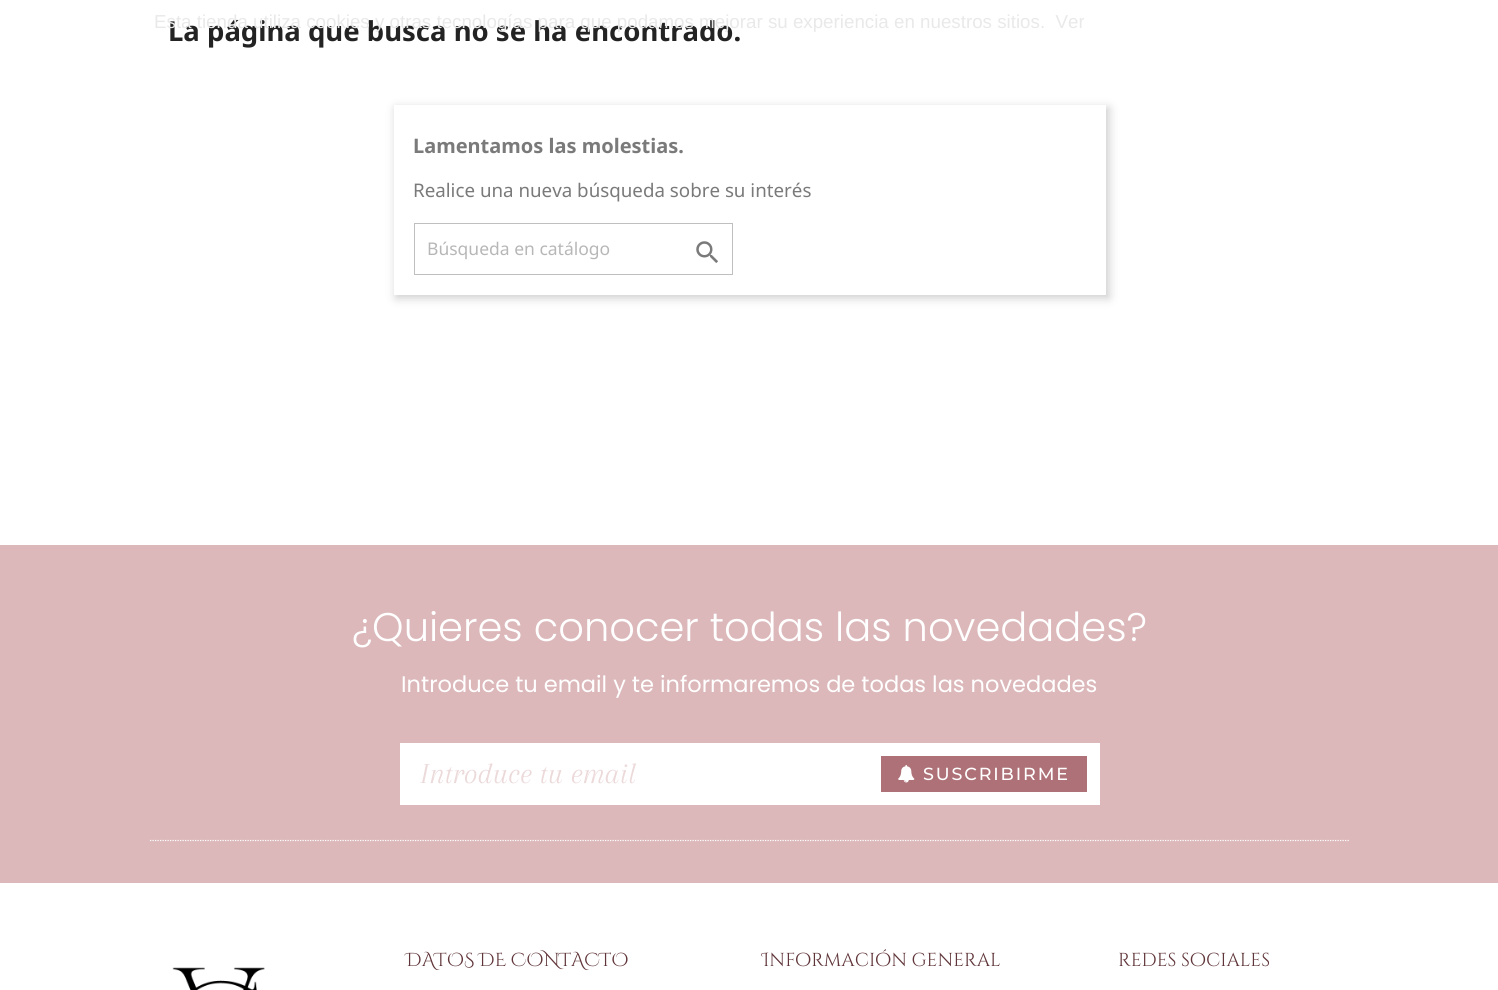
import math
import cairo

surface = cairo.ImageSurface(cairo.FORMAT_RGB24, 1498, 990)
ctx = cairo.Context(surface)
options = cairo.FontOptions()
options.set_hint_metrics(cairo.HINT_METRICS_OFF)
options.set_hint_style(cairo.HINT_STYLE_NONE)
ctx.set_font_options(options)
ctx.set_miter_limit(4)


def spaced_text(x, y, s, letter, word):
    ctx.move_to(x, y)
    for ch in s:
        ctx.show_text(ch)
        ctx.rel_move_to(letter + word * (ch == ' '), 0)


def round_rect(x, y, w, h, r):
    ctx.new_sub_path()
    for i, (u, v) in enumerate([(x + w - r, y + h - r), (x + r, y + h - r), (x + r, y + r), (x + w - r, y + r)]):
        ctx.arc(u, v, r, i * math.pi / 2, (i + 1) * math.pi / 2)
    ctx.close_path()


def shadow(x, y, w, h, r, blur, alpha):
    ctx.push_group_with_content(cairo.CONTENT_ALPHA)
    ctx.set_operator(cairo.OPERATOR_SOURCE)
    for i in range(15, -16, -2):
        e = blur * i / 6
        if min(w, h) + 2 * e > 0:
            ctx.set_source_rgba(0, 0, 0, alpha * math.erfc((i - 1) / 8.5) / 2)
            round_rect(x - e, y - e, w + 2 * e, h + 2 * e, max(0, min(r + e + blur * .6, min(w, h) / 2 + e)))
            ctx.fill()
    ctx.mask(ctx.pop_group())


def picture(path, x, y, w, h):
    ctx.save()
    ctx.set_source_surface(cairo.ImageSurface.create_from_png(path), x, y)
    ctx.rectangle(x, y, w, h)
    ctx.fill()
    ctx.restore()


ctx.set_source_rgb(1, 1, 1)
ctx.paint()
ctx.select_font_face("Noto Sans", cairo.FONT_SLANT_NORMAL, cairo.FONT_WEIGHT_BOLD)
ctx.set_font_size(27.5)
ctx.set_source_rgb(0.137, 0.137, 0.137)
ctx.move_to(168, 41)
ctx.show_text("La página que busca no se ha encontrado.")
ctx.select_font_face("Liberation Sans")
ctx.set_font_size(18.75)
ctx.set_source_rgb(0.914, 0.914, 0.914)
ctx.move_to(154, 28)
ctx.show_text("Esta tienda utiliza cookies y otras tecnologías para que podamos mejorar su experiencia en nuestros sitios.  Ver")
ctx.save()
ctx.set_fill_rule(cairo.FILL_RULE_EVEN_ODD)
ctx.new_path()
ctx.move_to(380, 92)
ctx.line_to(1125, 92)
ctx.line_to(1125, 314)
ctx.line_to(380, 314)
ctx.close_path()
ctx.move_to(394, 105)
ctx.line_to(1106, 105)
ctx.line_to(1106, 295)
ctx.line_to(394, 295)
ctx.close_path()
ctx.clip()
ctx.set_source_rgb(0, 0, 0)
shadow(396, 108, 713, 190, 0, 5, 0.2)
ctx.restore()
ctx.select_font_face("Noto Sans", cairo.FONT_SLANT_NORMAL, cairo.FONT_WEIGHT_BOLD)
ctx.set_font_size(20)
ctx.set_source_rgb(0.478, 0.478, 0.478)
ctx.move_to(413, 153)
ctx.show_text("Lamentamos las molestias.")
ctx.select_font_face("Noto Sans")
ctx.set_font_size(18.75)
ctx.move_to(413, 197)
ctx.show_text("Realice una nueva búsqueda sobre su interés")
ctx.rectangle(414.5, 223.5, 318, 51)
ctx.set_source_rgb(0.749, 0.749, 0.749)
ctx.set_line_width(1)
ctx.stroke()
ctx.set_font_size(17.5)
ctx.set_source_rgb(0.718, 0.718, 0.718)
ctx.move_to(427, 255)
ctx.show_text("Búsqueda en catálogo")
picture("img1.png", 696, 241, 22, 22)
ctx.set_source_rgb(0.863, 0.722, 0.729)
ctx.rectangle(0, 545, 1498, 338)
ctx.fill()
ctx.select_font_face("Poppins Light")
ctx.set_font_size(40)
ctx.set_source_rgb(1, 1, 1)
ctx.move_to(352, 641)
ctx.show_text("¿Quieres conocer todas las novedades?")
ctx.select_font_face("Poppins")
ctx.set_font_size(22.5)
ctx.move_to(401, 692)
ctx.show_text("Introduce tu email y te informaremos de todas las novedades")
ctx.rectangle(400, 743, 468, 62)
ctx.fill()
ctx.select_font_face("Arapey", cairo.FONT_SLANT_ITALIC)
ctx.set_font_size(30)
ctx.set_source_rgb(0.925, 0.851, 0.855)
ctx.move_to(420, 783)
ctx.show_text("Introduce tu email")
ctx.set_source_rgb(0.678, 0.443, 0.467)
ctx.rectangle(874.5, 749.5, 219, 49)
ctx.fill_preserve()
ctx.set_source_rgb(1, 1, 1)
ctx.set_line_width(13)
ctx.stroke()
picture("img2.png", 898, 765, 17, 18)
ctx.select_font_face("Montserrat Medium")
ctx.set_font_size(17.5)
spaced_text(923, 780, "SUSCRIBIRME", 1.9, 0)
ctx.new_path()
ctx.move_to(150, 840.5)
ctx.line_to(1349, 840.5)
ctx.set_line_width(1.2)
ctx.set_dash([1.25, 1.25])
ctx.stroke()
ctx.select_font_face("Cinzel Decorative")
ctx.set_font_size(18.75)
ctx.set_source_rgb(0.376, 0.208, 0.224)
ctx.move_to(406, 966)
ctx.show_text("DATOS DE CONTACTO")
ctx.move_to(762, 966)
ctx.show_text("Información general")
ctx.move_to(1118, 966)
ctx.show_text("redes sociales")
picture("img3.png", 172, 967, 93, 23)
surface.write_to_png("page.png")
